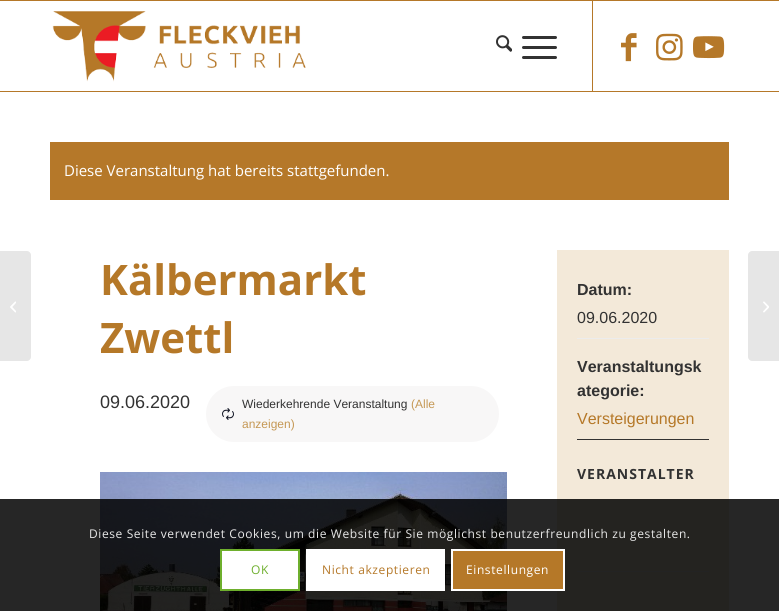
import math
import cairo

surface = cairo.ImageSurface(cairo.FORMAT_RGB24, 779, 611)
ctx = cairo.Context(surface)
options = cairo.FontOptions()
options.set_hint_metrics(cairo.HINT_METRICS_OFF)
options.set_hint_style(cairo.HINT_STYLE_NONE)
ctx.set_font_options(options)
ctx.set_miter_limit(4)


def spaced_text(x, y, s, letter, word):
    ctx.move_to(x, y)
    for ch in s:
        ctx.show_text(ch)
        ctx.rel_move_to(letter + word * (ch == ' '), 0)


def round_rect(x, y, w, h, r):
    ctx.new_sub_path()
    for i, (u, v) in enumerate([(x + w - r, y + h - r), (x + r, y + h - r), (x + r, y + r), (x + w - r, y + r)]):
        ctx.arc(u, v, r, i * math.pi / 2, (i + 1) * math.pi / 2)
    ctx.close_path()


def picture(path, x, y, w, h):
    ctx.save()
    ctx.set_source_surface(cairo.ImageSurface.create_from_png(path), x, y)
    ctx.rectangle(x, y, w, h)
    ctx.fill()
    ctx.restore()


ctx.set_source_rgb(1, 1, 1)
ctx.paint()
ctx.set_source_rgb(0.71, 0.471, 0.161)
ctx.rectangle(0, 0, 779, 1)
ctx.fill()
ctx.rectangle(0, 91, 779, 1)
ctx.fill()
picture("img1.png", 52, 11, 254, 71)
ctx.rectangle(592, 1, 1, 90)
ctx.fill()
picture("img2.png", 496, 35, 16, 17)
ctx.set_source_rgb(0.196, 0.196, 0.196)
round_rect(522, 46, 35, 3, 1.5)
ctx.fill()
round_rect(522, 36, 35, 3, 1.5)
ctx.fill()
round_rect(522, 56, 35, 3, 1.5)
ctx.fill()
picture("img3.png", 621, 33, 16, 29)
picture("img4.png", 656, 33, 27, 28)
picture("img5.png", 693, 36, 32, 23)
ctx.set_source_rgb(0.902, 0.902, 0.902)
ctx.new_path()
ctx.move_to(0, 251)
ctx.line_to(27, 251)
ctx.curve_to(29, 251, 31, 253, 31, 255)
ctx.line_to(31, 357)
ctx.curve_to(31, 359, 29, 361, 27, 361)
ctx.line_to(0, 361)
ctx.close_path()
ctx.fill()
picture("img6.png", 10, 301, 6, 12)
ctx.set_source_rgb(0.71, 0.471, 0.161)
ctx.rectangle(50, 142, 679, 58)
ctx.fill()
ctx.select_font_face("Open Sans")
ctx.set_font_size(15)
ctx.set_source_rgb(1, 1, 1)
ctx.move_to(64, 176)
ctx.show_text("Diese Veranstaltung hat bereits stattgefunden.")
ctx.select_font_face("Open Sans", cairo.FONT_SLANT_NORMAL, cairo.FONT_WEIGHT_BOLD)
ctx.set_font_size(42)
ctx.set_source_rgb(0.71, 0.471, 0.157)
ctx.move_to(100, 295)
ctx.show_text("Kälbermarkt")
ctx.move_to(100, 353)
ctx.show_text("Zwettl")
ctx.select_font_face("Liberation Sans")
ctx.set_font_size(18)
ctx.set_source_rgb(0.196, 0.196, 0.196)
ctx.move_to(100, 408)
ctx.show_text("09.06.2020")
ctx.set_source_rgb(0.969, 0.965, 0.965)
round_rect(206, 386, 293, 56, 28)
ctx.fill()
picture("img7.png", 222, 408, 12, 12)
ctx.set_font_size(12)
ctx.set_source_rgb(0.196, 0.196, 0.196)
ctx.move_to(242, 408)
ctx.show_text("Wiederkehrende Veranstaltung")
ctx.set_source_rgb(0.773, 0.596, 0.333)
ctx.move_to(411, 408)
ctx.show_text("(Alle")
ctx.move_to(242, 428)
ctx.show_text("anzeigen)")
picture("img8.png", 100, 472, 407, 139)
ctx.set_source_rgb(0.953, 0.914, 0.851)
ctx.rectangle(557, 250, 172, 361)
ctx.fill()
ctx.select_font_face("Liberation Sans", cairo.FONT_SLANT_NORMAL, cairo.FONT_WEIGHT_BOLD)
ctx.set_font_size(16)
ctx.set_source_rgb(0.196, 0.196, 0.196)
ctx.move_to(577, 295)
ctx.show_text("Datum:")
ctx.set_source_rgb(0.922, 0.922, 0.922)
ctx.rectangle(577, 338, 132, 1)
ctx.fill()
ctx.select_font_face("Liberation Sans")
ctx.set_source_rgb(0.196, 0.196, 0.196)
ctx.move_to(577, 323)
ctx.show_text("09.06.2020")
ctx.select_font_face("Liberation Sans", cairo.FONT_SLANT_NORMAL, cairo.FONT_WEIGHT_BOLD)
ctx.move_to(577, 372)
ctx.show_text("Veranstaltungsk")
ctx.move_to(577, 396)
ctx.show_text("ategorie:")
ctx.rectangle(577, 439, 132, 1)
ctx.fill()
ctx.select_font_face("Liberation Sans")
ctx.set_source_rgb(0.71, 0.471, 0.157)
ctx.move_to(577, 424)
ctx.show_text("Versteigerungen")
ctx.select_font_face("Open Sans", cairo.FONT_SLANT_NORMAL, cairo.FONT_WEIGHT_BOLD)
ctx.set_font_size(14)
ctx.set_source_rgb(0.196, 0.196, 0.196)
spaced_text(577, 479, "VERANSTALTER", 1, 0)
ctx.set_source_rgb(0.922, 0.922, 0.922)
ctx.rectangle(577, 571, 132, 1)
ctx.fill()
ctx.set_source_rgb(0.902, 0.902, 0.902)
ctx.new_path()
ctx.move_to(752, 251)
ctx.line_to(779, 251)
ctx.line_to(779, 361)
ctx.line_to(752, 361)
ctx.curve_to(750, 361, 748, 359, 748, 357)
ctx.line_to(748, 255)
ctx.curve_to(748, 253, 750, 251, 752, 251)
ctx.close_path()
ctx.fill()
picture("img9.png", 763, 301, 6, 12)
ctx.set_source_rgba(0, 0, 0, 0.85)
ctx.rectangle(0, 499, 779, 112)
ctx.fill()
ctx.select_font_face("Open Sans")
ctx.set_font_size(12)
ctx.set_source_rgb(0.91, 0.91, 0.91)
spaced_text(89, 538, "Diese Seite verwendet Cookies, um die Website für Sie möglichst benutzerfreundlich zu gestalten.", 0.6, 0)
ctx.set_source_rgb(1, 1, 1)
ctx.rectangle(221, 550, 78, 40)
ctx.fill_preserve()
ctx.set_source_rgb(0.431, 0.686, 0.176)
ctx.stroke()
spaced_text(251, 574, "OK", 0.6, 0)
ctx.set_source_rgb(1, 1, 1)
ctx.rectangle(306, 549, 139, 42)
ctx.fill()
ctx.set_source_rgb(0.71, 0.471, 0.157)
spaced_text(322, 574, "Nicht akzeptieren", 0.6, 0)
ctx.rectangle(452, 550, 112, 40)
ctx.fill_preserve()
ctx.set_source_rgb(1, 1, 1)
ctx.stroke()
spaced_text(466, 574, "Einstellungen", 0.6, 0)
surface.write_to_png("page.png")
